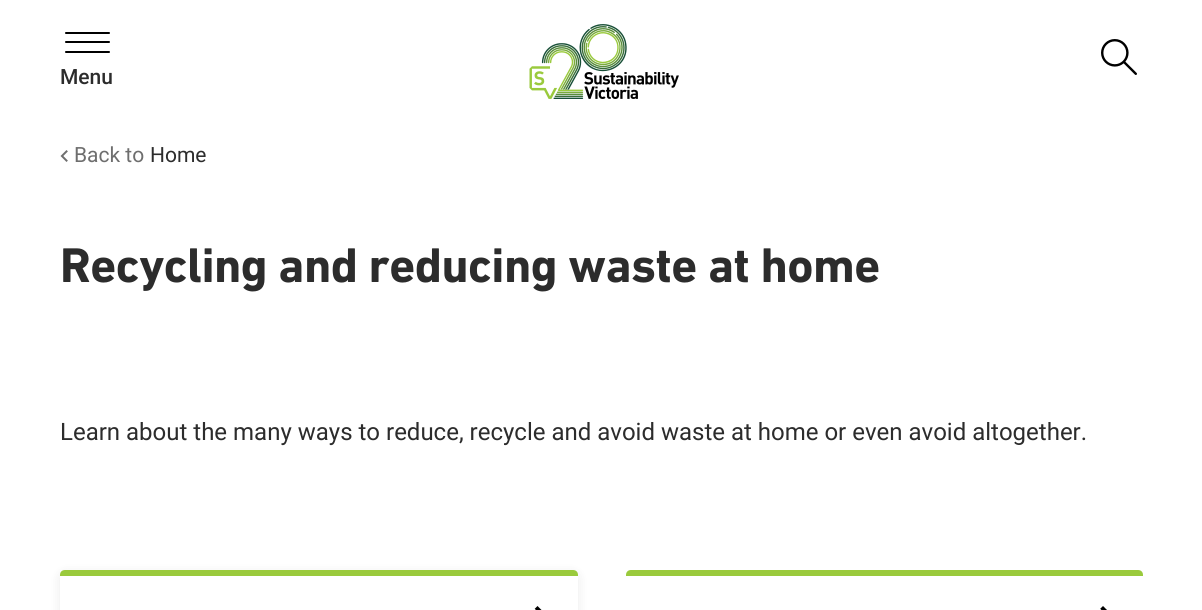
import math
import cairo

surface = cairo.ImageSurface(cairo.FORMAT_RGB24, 1202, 610)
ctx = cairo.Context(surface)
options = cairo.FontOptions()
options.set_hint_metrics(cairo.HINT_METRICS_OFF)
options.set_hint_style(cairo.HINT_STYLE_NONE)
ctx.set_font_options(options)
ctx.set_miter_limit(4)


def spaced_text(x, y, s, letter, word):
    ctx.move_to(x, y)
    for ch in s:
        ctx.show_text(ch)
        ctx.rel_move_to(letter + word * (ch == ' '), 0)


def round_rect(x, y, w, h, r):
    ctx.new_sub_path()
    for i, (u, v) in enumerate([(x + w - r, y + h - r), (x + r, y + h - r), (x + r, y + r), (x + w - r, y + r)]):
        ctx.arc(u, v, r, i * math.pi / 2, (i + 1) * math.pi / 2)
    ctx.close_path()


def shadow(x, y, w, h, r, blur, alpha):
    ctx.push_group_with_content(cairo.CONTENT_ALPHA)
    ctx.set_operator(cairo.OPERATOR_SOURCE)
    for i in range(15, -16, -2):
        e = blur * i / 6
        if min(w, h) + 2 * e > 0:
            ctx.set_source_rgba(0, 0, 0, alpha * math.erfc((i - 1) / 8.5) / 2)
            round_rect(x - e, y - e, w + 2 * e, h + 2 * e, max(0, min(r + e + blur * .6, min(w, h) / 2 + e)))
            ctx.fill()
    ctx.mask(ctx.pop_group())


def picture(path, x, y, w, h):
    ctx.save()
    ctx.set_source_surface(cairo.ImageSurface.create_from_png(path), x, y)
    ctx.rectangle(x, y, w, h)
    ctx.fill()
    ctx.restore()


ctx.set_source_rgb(1, 1, 1)
ctx.paint()
picture("img1.png", 529, 24, 150, 75)
picture("img2.png", 1101, 39, 36, 36)
ctx.set_source_rgb(0, 0, 0)
round_rect(65, 32, 45, 2, 1)
ctx.fill()
round_rect(65, 41, 45, 2, 1)
ctx.fill()
round_rect(65, 51, 45, 2, 1)
ctx.fill()
ctx.select_font_face("Roboto Medium")
ctx.set_font_size(21)
ctx.set_source_rgb(0.173, 0.173, 0.173)
ctx.move_to(60, 84)
ctx.show_text("Menu")
picture("img3.png", 60, 150, 8, 12)
ctx.select_font_face("Roboto")
ctx.set_source_rgb(0.431, 0.431, 0.431)
ctx.move_to(74, 162)
ctx.show_text("Back to")
ctx.set_source_rgb(0.173, 0.173, 0.173)
ctx.move_to(150, 162)
ctx.show_text("Home")
ctx.select_font_face("DIN Next", cairo.FONT_SLANT_NORMAL, cairo.FONT_WEIGHT_BOLD)
ctx.set_font_size(49.5)
spaced_text(60, 282, "Recycling and reducing waste at home", -0.55, 0)
ctx.select_font_face("Roboto")
ctx.set_font_size(24)
ctx.move_to(60, 440)
ctx.show_text("Learn about the many ways to reduce, recycle and avoid waste at home or even avoid altogether.")
ctx.set_source_rgb(0, 0, 0)
shadow(60, 573, 518, 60, 5, 6, 0.08)
ctx.set_source_rgb(1, 1, 1)
ctx.new_path()
ctx.move_to(65, 570)
ctx.line_to(573, 570)
ctx.curve_to(576, 570, 578, 572, 578, 575)
ctx.line_to(578, 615)
ctx.line_to(60, 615)
ctx.line_to(60, 575)
ctx.curve_to(60, 572, 62, 570, 65, 570)
ctx.close_path()
ctx.fill()
ctx.set_source_rgb(0.604, 0.792, 0.235)
ctx.new_path()
ctx.move_to(65, 570)
ctx.line_to(573, 570)
ctx.curve_to(576, 570, 578, 572, 578, 575)
ctx.line_to(578, 576)
ctx.line_to(60, 576)
ctx.line_to(60, 575)
ctx.curve_to(60, 572, 62, 570, 65, 570)
ctx.close_path()
ctx.fill()
picture("img4.png", 534, 606, 8, 4)
ctx.new_path()
ctx.move_to(631, 570)
ctx.line_to(1138, 570)
ctx.curve_to(1141, 570, 1143, 572, 1143, 575)
ctx.line_to(1143, 576)
ctx.line_to(626, 576)
ctx.line_to(626, 575)
ctx.curve_to(626, 572, 628, 570, 631, 570)
ctx.close_path()
ctx.fill()
picture("img5.png", 1100, 606, 7, 4)
surface.write_to_png("page.png")
